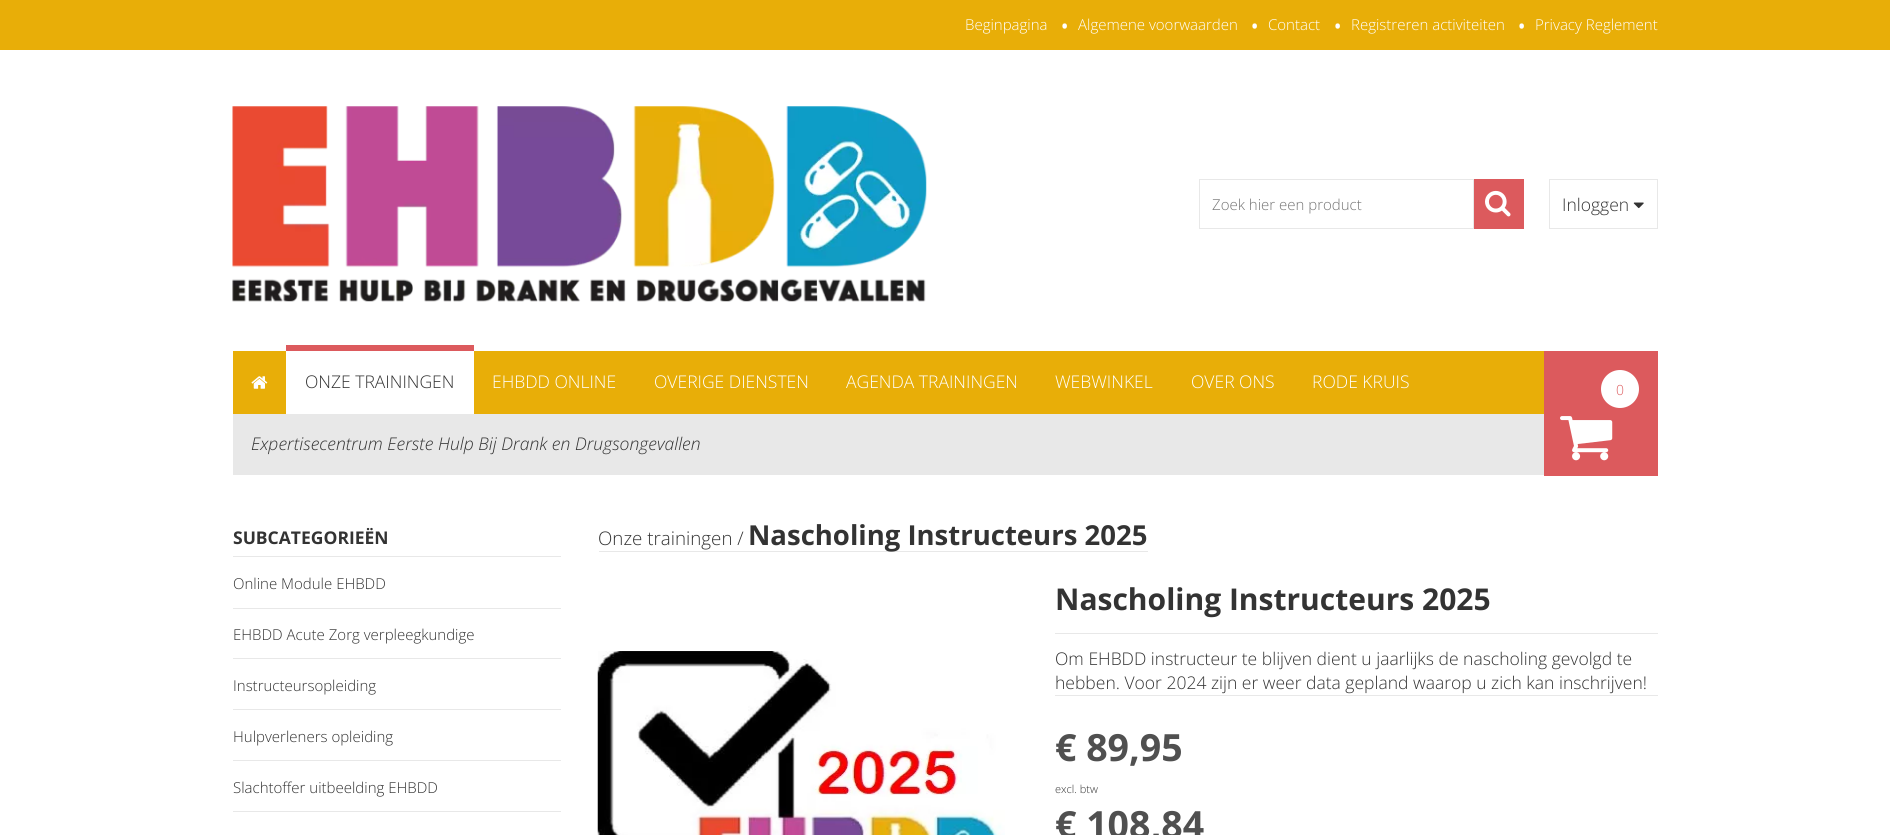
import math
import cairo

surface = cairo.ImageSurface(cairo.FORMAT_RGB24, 1890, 835)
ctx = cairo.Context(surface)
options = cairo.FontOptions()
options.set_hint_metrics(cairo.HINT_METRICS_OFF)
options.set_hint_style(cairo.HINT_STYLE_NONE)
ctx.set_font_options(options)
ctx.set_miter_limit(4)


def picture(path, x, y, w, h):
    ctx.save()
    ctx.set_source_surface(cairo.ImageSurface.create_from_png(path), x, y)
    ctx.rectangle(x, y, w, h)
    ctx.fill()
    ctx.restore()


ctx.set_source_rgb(1, 1, 1)
ctx.paint()
ctx.set_source_rgb(0.91, 0.682, 0.035)
ctx.rectangle(0, 0, 1890, 50)
ctx.fill()
ctx.select_font_face("Open Sans Light")
ctx.set_font_size(15)
ctx.set_source_rgb(1, 1, 1)
ctx.move_to(965, 30)
ctx.show_text("Beginpagina")
ctx.set_font_size(30)
ctx.move_to(1059, 37)
ctx.show_text("•")
ctx.set_font_size(15)
ctx.move_to(1078, 30)
ctx.show_text("Algemene voorwaarden")
ctx.set_font_size(30)
ctx.move_to(1249, 37)
ctx.show_text("•")
ctx.set_font_size(15)
ctx.move_to(1268, 30)
ctx.show_text("Contact")
ctx.set_font_size(30)
ctx.move_to(1332, 37)
ctx.show_text("•")
ctx.set_font_size(15)
ctx.move_to(1351, 30)
ctx.show_text("Registreren activiteiten")
ctx.set_font_size(30)
ctx.move_to(1516, 37)
ctx.show_text("•")
ctx.set_font_size(15)
ctx.move_to(1535, 30)
ctx.show_text("Privacy Reglement")
picture("img1.png", 232, 106, 695, 196)
ctx.rectangle(1199.5, 179.5, 274, 49)
ctx.set_source_rgb(0.91, 0.91, 0.91)
ctx.set_line_width(1)
ctx.stroke()
ctx.set_source_rgb(0.459, 0.459, 0.459)
ctx.move_to(1212, 210)
ctx.show_text("Zoek hier een product")
ctx.set_source_rgb(0.863, 0.353, 0.365)
ctx.rectangle(1474, 179, 50, 50)
ctx.fill()
picture("img2.png", 1485, 190, 26, 27)
ctx.rectangle(1549.5, 179.5, 108, 49)
ctx.set_source_rgb(0.91, 0.91, 0.91)
ctx.stroke()
ctx.set_font_size(17.5)
ctx.set_source_rgb(0.2, 0.2, 0.2)
ctx.move_to(1562, 211)
ctx.show_text("Inloggen")
picture("img3.png", 1633, 202, 11, 7)
ctx.set_source_rgb(0.91, 0.682, 0.035)
ctx.rectangle(233, 351, 1311, 63)
ctx.fill()
picture("img4.png", 251, 376, 17, 13)
ctx.set_source_rgb(1, 1, 1)
ctx.rectangle(286, 351, 188, 63)
ctx.fill()
ctx.set_source_rgb(0.2, 0.2, 0.2)
ctx.move_to(305, 388)
ctx.show_text("ONZE TRAININGEN")
ctx.set_source_rgb(0.863, 0.353, 0.365)
ctx.rectangle(286, 345, 188, 6)
ctx.fill()
ctx.set_source_rgb(1, 1, 1)
ctx.move_to(492, 388)
ctx.show_text("EHBDD ONLINE")
ctx.move_to(654, 388)
ctx.show_text("OVERIGE DIENSTEN")
ctx.move_to(846, 388)
ctx.show_text("AGENDA TRAININGEN")
ctx.move_to(1055, 388)
ctx.show_text("WEBWINKEL")
ctx.move_to(1191, 388)
ctx.show_text("OVER ONS")
ctx.move_to(1312, 388)
ctx.show_text("RODE KRUIS")
ctx.set_source_rgb(0.863, 0.353, 0.365)
ctx.rectangle(1544, 351, 114, 125)
ctx.fill()
ctx.set_source_rgb(1, 1, 1)
ctx.arc(1620, 389, 19, 0, 2 * math.pi)
ctx.fill()
ctx.set_font_size(14)
ctx.set_source_rgb(0.863, 0.353, 0.365)
ctx.move_to(1616, 395)
ctx.show_text("0")
picture("img5.png", 1560, 416, 53, 45)
ctx.set_source_rgb(0.91, 0.91, 0.91)
ctx.rectangle(233, 414, 1311, 61)
ctx.fill()
ctx.select_font_face("Open Sans Light", cairo.FONT_SLANT_ITALIC)
ctx.set_font_size(17.5)
ctx.set_source_rgb(0.2, 0.2, 0.2)
ctx.move_to(251, 450)
ctx.show_text("Expertisecentrum Eerste Hulp Bij Drank en Drugsongevallen")
ctx.select_font_face("Open Sans", cairo.FONT_SLANT_NORMAL, cairo.FONT_WEIGHT_BOLD)
ctx.move_to(233, 544)
ctx.show_text("SUBCATEGORIEËN")
ctx.set_source_rgb(0.91, 0.91, 0.91)
ctx.rectangle(233, 556, 328, 1)
ctx.fill()
ctx.rectangle(233, 608, 328, 1)
ctx.fill()
ctx.select_font_face("Open Sans Light")
ctx.set_font_size(15)
ctx.set_source_rgb(0.2, 0.2, 0.2)
ctx.move_to(233, 589)
ctx.show_text("Online Module EHBDD")
ctx.set_source_rgb(0.91, 0.91, 0.91)
ctx.rectangle(233, 658, 328, 1)
ctx.fill()
ctx.set_source_rgb(0.2, 0.2, 0.2)
ctx.move_to(233, 640)
ctx.show_text("EHBDD Acute Zorg verpleegkundige")
ctx.set_source_rgb(0.91, 0.91, 0.91)
ctx.rectangle(233, 709, 328, 1)
ctx.fill()
ctx.set_source_rgb(0.2, 0.2, 0.2)
ctx.move_to(233, 691)
ctx.show_text("Instructeursopleiding")
ctx.set_source_rgb(0.91, 0.91, 0.91)
ctx.rectangle(233, 760, 328, 1)
ctx.fill()
ctx.set_source_rgb(0.2, 0.2, 0.2)
ctx.move_to(233, 742)
ctx.show_text("Hulpverleners opleiding")
ctx.set_source_rgb(0.91, 0.91, 0.91)
ctx.rectangle(233, 811, 328, 1)
ctx.fill()
ctx.set_source_rgb(0.2, 0.2, 0.2)
ctx.move_to(233, 793)
ctx.show_text("Slachtoffer uitbeelding EHBDD")
ctx.set_source_rgb(0.91, 0.91, 0.91)
ctx.rectangle(599, 551, 549, 1)
ctx.fill()
ctx.set_font_size(18.75)
ctx.set_source_rgb(0.2, 0.2, 0.2)
ctx.move_to(598, 545)
ctx.show_text("Onze trainingen /")
ctx.select_font_face("Open Sans", cairo.FONT_SLANT_NORMAL, cairo.FONT_WEIGHT_BOLD)
ctx.set_font_size(27.5)
ctx.move_to(748, 545)
ctx.show_text("Nascholing Instructeurs 2025")
picture("img6.png", 597, 651, 408, 184)
ctx.set_font_size(30)
ctx.move_to(1055, 610)
ctx.show_text("Nascholing Instructeurs 2025")
ctx.set_source_rgb(0.91, 0.91, 0.91)
ctx.rectangle(1055, 633, 603, 1)
ctx.fill()
ctx.select_font_face("Open Sans Light")
ctx.set_font_size(17.5)
ctx.set_source_rgb(0.2, 0.2, 0.2)
ctx.move_to(1055, 665)
ctx.show_text("Om EHBDD instructeur te blijven dient u jaarlijks de nascholing gevolgd te")
ctx.move_to(1055, 689)
ctx.show_text("hebben. Voor 2024 zijn er weer data gepland waarop u zich kan inschrijven!")
ctx.set_source_rgb(0.91, 0.91, 0.91)
ctx.rectangle(1055, 695, 603, 1)
ctx.fill()
ctx.select_font_face("Open Sans", cairo.FONT_SLANT_NORMAL, cairo.FONT_WEIGHT_BOLD)
ctx.set_font_size(37.5)
ctx.set_source_rgb(0.314, 0.314, 0.314)
ctx.move_to(1055, 761)
ctx.show_text("€ 89,95")
ctx.select_font_face("Open Sans Light")
ctx.set_font_size(11)
ctx.set_source_rgb(0.2, 0.2, 0.2)
ctx.move_to(1055, 793)
ctx.show_text("excl. btw")
ctx.select_font_face("Open Sans", cairo.FONT_SLANT_NORMAL, cairo.FONT_WEIGHT_BOLD)
ctx.set_font_size(37.5)
ctx.set_source_rgb(0.314, 0.314, 0.314)
ctx.move_to(1055, 838)
ctx.show_text("€ 108,84")
surface.write_to_png("page.png")
